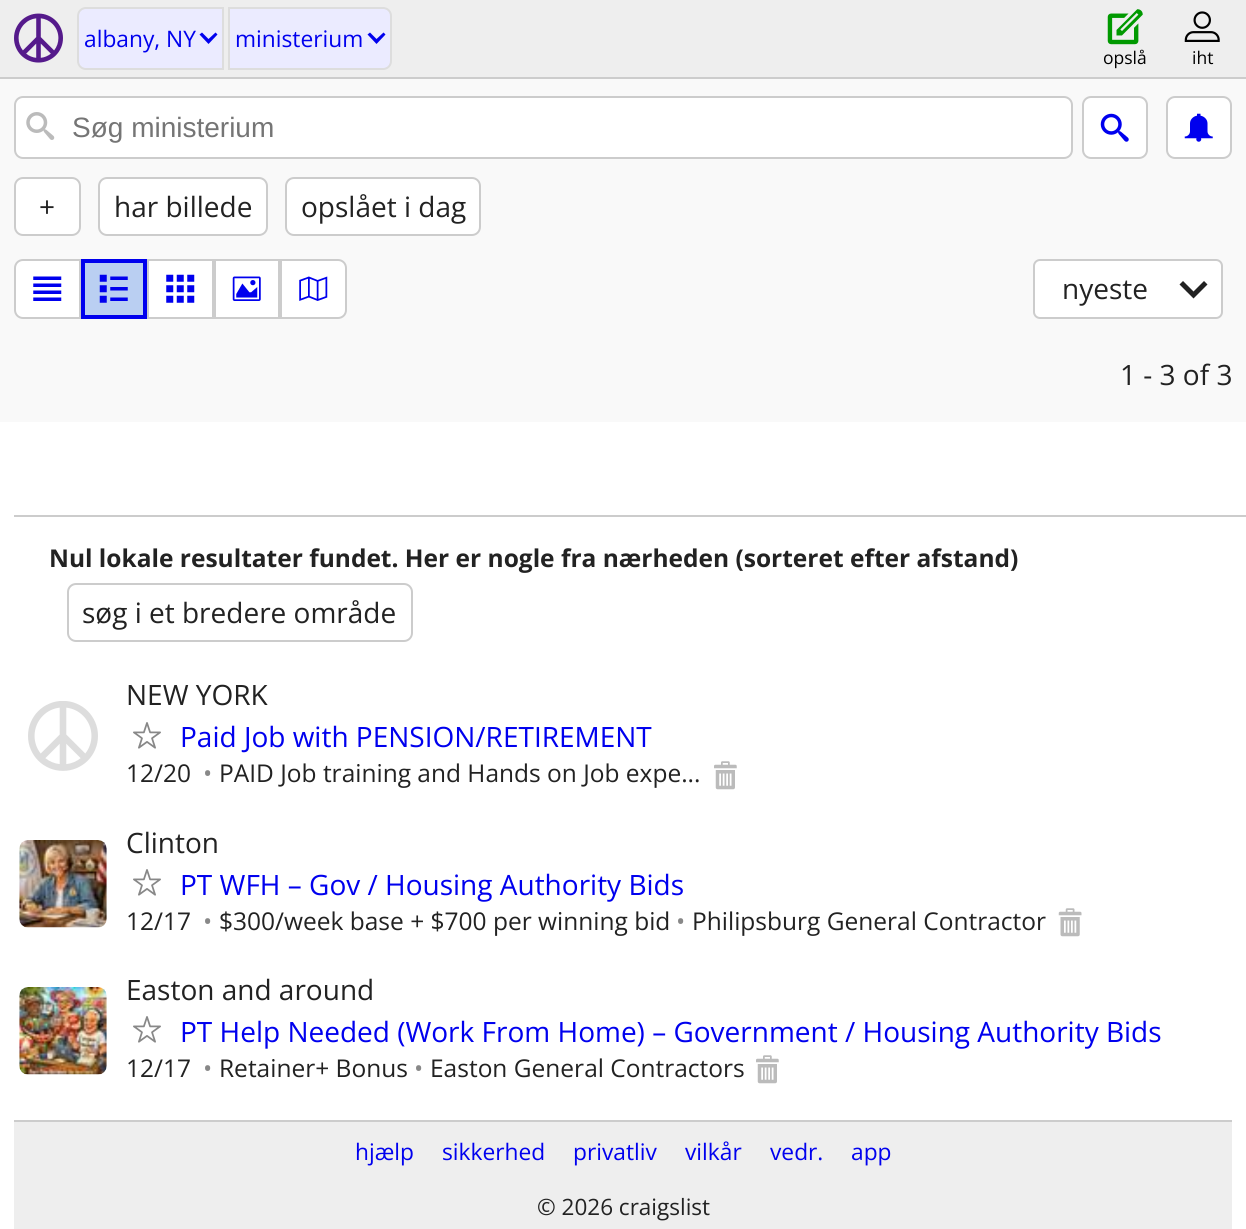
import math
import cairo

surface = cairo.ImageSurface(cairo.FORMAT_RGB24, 1246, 1229)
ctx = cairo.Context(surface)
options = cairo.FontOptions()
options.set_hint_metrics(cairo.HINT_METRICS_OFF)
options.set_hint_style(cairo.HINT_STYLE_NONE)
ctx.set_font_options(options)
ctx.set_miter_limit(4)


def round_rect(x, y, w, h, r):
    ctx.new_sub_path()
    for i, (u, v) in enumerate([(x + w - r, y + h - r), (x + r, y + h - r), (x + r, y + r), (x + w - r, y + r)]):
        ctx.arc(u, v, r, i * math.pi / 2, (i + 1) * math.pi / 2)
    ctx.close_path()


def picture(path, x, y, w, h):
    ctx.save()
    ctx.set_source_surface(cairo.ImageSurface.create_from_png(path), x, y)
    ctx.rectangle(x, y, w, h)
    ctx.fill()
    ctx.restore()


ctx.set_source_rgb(1, 1, 1)
ctx.paint()
ctx.set_source_rgb(0.933, 0.933, 0.933)
ctx.rectangle(0, 0, 1246, 77)
ctx.fill()
ctx.set_source_rgb(0.8, 0.8, 0.8)
ctx.rectangle(0, 77, 1246, 2)
ctx.fill()
picture("img1.png", 14, 13, 49, 50)
ctx.set_source_rgb(0.918, 0.918, 1)
ctx.new_path()
ctx.move_to(86, 8)
ctx.line_to(223, 8)
ctx.line_to(223, 69)
ctx.line_to(86, 69)
ctx.curve_to(81.5, 69, 78, 65.5, 78, 61)
ctx.line_to(78, 16)
ctx.curve_to(78, 11.5, 81.5, 8, 86, 8)
ctx.close_path()
ctx.fill_preserve()
ctx.set_source_rgb(0.867, 0.867, 0.867)
ctx.stroke()
ctx.select_font_face("Open Sans")
ctx.set_font_size(22.75)
ctx.set_source_rgb(0, 0, 0.933)
ctx.move_to(84, 47)
ctx.show_text("albany, NY")
ctx.new_path()
ctx.move_to(217.5, 34.5)
ctx.line_to(215.5, 32.5)
ctx.line_to(208.5, 39)
ctx.line_to(202, 32.5)
ctx.line_to(199.5, 34.5)
ctx.line_to(208.5, 44)
ctx.close_path()
ctx.fill()
ctx.set_source_rgb(0.918, 0.918, 1)
ctx.new_path()
ctx.move_to(229, 8)
ctx.line_to(383, 8)
ctx.curve_to(387.5, 8, 391, 11.5, 391, 16)
ctx.line_to(391, 61)
ctx.curve_to(391, 65.5, 387.5, 69, 383, 69)
ctx.line_to(229, 69)
ctx.close_path()
ctx.fill_preserve()
ctx.set_source_rgb(0.867, 0.867, 0.867)
ctx.stroke()
ctx.set_source_rgb(0, 0, 0.933)
ctx.move_to(235, 47)
ctx.show_text("ministerium")
ctx.new_path()
ctx.move_to(385.5, 34.5)
ctx.line_to(383.5, 32.5)
ctx.line_to(376.5, 39)
ctx.line_to(370, 32.5)
ctx.line_to(367.5, 34.5)
ctx.line_to(376.5, 44)
ctx.close_path()
ctx.fill()
picture("img2.png", 1107, 9, 36, 36)
ctx.set_font_size(17.5)
ctx.set_source_rgb(0, 0, 0)
ctx.move_to(1103, 64)
ctx.show_text("opslå")
picture("img3.png", 1184, 11, 36, 31)
ctx.move_to(1192, 64)
ctx.show_text("iht")
ctx.set_source_rgb(0.973, 0.973, 0.973)
ctx.rectangle(0, 79, 1246, 343)
ctx.fill()
ctx.set_source_rgb(1, 1, 1)
round_rect(15, 97, 1057, 61, 8)
ctx.fill_preserve()
ctx.set_source_rgb(0.8, 0.8, 0.8)
ctx.stroke()
picture("img4.png", 26, 112, 29, 28)
ctx.select_font_face("Liberation Sans")
ctx.set_font_size(28)
ctx.set_source_rgb(0.459, 0.459, 0.459)
ctx.move_to(72, 137)
ctx.show_text("Søg ministerium")
ctx.set_source_rgb(1, 1, 1)
round_rect(1083, 97, 64, 61, 8)
ctx.fill_preserve()
ctx.set_source_rgb(0.8, 0.8, 0.8)
ctx.stroke()
picture("img5.png", 1100, 113, 29, 29)
ctx.set_source_rgb(1, 1, 1)
round_rect(1167, 97, 64, 61, 8)
ctx.fill_preserve()
ctx.set_source_rgb(0.8, 0.8, 0.8)
ctx.stroke()
picture("img6.png", 1184, 113, 29, 29)
ctx.set_source_rgb(1, 1, 1)
round_rect(15, 178, 65, 57, 8)
ctx.fill_preserve()
ctx.set_source_rgb(0.8, 0.8, 0.8)
ctx.stroke()
ctx.select_font_face("Open Sans")
ctx.set_source_rgb(0.133, 0.133, 0.133)
ctx.move_to(39, 217)
ctx.show_text("+")
ctx.set_source_rgb(1, 1, 1)
round_rect(99, 178, 168, 57, 8)
ctx.fill_preserve()
ctx.set_source_rgb(0.8, 0.8, 0.8)
ctx.stroke()
ctx.set_source_rgb(0.133, 0.133, 0.133)
ctx.move_to(114, 217)
ctx.show_text("har billede")
ctx.set_source_rgb(1, 1, 1)
round_rect(286, 178, 194, 57, 8)
ctx.fill_preserve()
ctx.set_source_rgb(0.8, 0.8, 0.8)
ctx.stroke()
ctx.set_source_rgb(0.133, 0.133, 0.133)
ctx.move_to(301, 217)
ctx.show_text("opslået i dag")
ctx.set_source_rgb(1, 1, 1)
ctx.new_path()
ctx.move_to(23, 260)
ctx.line_to(80, 260)
ctx.line_to(80, 318)
ctx.line_to(23, 318)
ctx.curve_to(18.5, 318, 15, 314.5, 15, 310)
ctx.line_to(15, 268)
ctx.curve_to(15, 263.5, 18.5, 260, 23, 260)
ctx.close_path()
ctx.fill_preserve()
ctx.set_source_rgb(0.8, 0.8, 0.8)
ctx.stroke()
picture("img7.png", 33, 276, 29, 25)
ctx.set_source_rgb(0.729, 0.812, 0.949)
ctx.rectangle(83, 261, 62, 56)
ctx.fill_preserve()
ctx.set_source_rgb(0, 0, 0.933)
ctx.set_line_width(4)
ctx.stroke()
picture("img8.png", 99, 274, 29, 29)
ctx.set_source_rgb(1, 1, 1)
ctx.rectangle(148, 260, 65, 58)
ctx.fill_preserve()
ctx.set_source_rgb(0.8, 0.8, 0.8)
ctx.set_line_width(2)
ctx.stroke()
picture("img9.png", 166, 274, 29, 29)
ctx.set_source_rgb(1, 1, 1)
ctx.rectangle(215, 260, 64, 58)
ctx.fill_preserve()
ctx.set_source_rgb(0.8, 0.8, 0.8)
ctx.stroke()
picture("img10.png", 232, 276, 29, 25)
ctx.set_source_rgb(1, 1, 1)
ctx.new_path()
ctx.move_to(281, 260)
ctx.line_to(338, 260)
ctx.curve_to(342.5, 260, 346, 263.5, 346, 268)
ctx.line_to(346, 310)
ctx.curve_to(346, 314.5, 342.5, 318, 338, 318)
ctx.line_to(281, 318)
ctx.close_path()
ctx.fill_preserve()
ctx.set_source_rgb(0.8, 0.8, 0.8)
ctx.stroke()
picture("img11.png", 299, 276, 29, 25)
ctx.set_source_rgb(1, 1, 1)
round_rect(1034, 260, 188, 58, 6)
ctx.fill_preserve()
ctx.set_source_rgb(0.8, 0.8, 0.8)
ctx.stroke()
ctx.set_source_rgb(0.133, 0.133, 0.133)
ctx.move_to(1062, 299)
ctx.show_text("nyeste")
ctx.new_path()
ctx.move_to(1207.5, 284.5)
ctx.line_to(1204, 281)
ctx.line_to(1193.5, 291.5)
ctx.line_to(1183, 281)
ctx.line_to(1179.5, 284.5)
ctx.line_to(1193.5, 298.5)
ctx.close_path()
ctx.fill()
ctx.move_to(1120, 385)
ctx.show_text("1 - 3 of 3")
ctx.set_source_rgb(0.8, 0.8, 0.8)
ctx.rectangle(14, 515, 1232, 2)
ctx.fill()
ctx.select_font_face("Open Sans", cairo.FONT_SLANT_NORMAL, cairo.FONT_WEIGHT_BOLD)
ctx.set_font_size(24.5)
ctx.set_source_rgb(0.133, 0.133, 0.133)
ctx.move_to(49, 567)
ctx.show_text("Nul lokale resultater fundet. Her er nogle fra nærheden (sorteret efter afstand)")
round_rect(68, 584, 344, 57, 8)
ctx.set_source_rgb(0.8, 0.8, 0.8)
ctx.stroke()
ctx.select_font_face("Open Sans")
ctx.set_font_size(28)
ctx.set_source_rgb(0.133, 0.133, 0.133)
ctx.move_to(82, 623)
ctx.show_text("søg i et bredere område")
picture("img12.png", 28, 701, 70, 70)
ctx.move_to(126, 705)
ctx.show_text("NEW YORK")
picture("img13.png", 133, 722, 28, 27)
ctx.set_source_rgb(0, 0, 0.933)
ctx.move_to(180, 747)
ctx.show_text("Paid Job with PENSION/RETIREMENT")
ctx.set_font_size(24.5)
ctx.set_source_rgb(0.133, 0.133, 0.133)
ctx.move_to(126, 782)
ctx.show_text("12/20")
ctx.set_source_rgb(0.533, 0.533, 0.533)
ctx.move_to(203, 782)
ctx.show_text("•")
ctx.set_source_rgb(0.133, 0.133, 0.133)
ctx.move_to(219, 782)
ctx.show_text("PAID Job training and Hands on Job expe...")
picture("img14.png", 714, 761, 23, 29)
picture("img15.png", 19, 840, 88, 88)
ctx.set_font_size(28)
ctx.move_to(126, 853)
ctx.show_text("Clinton")
picture("img13.png", 133, 869, 28, 27)
ctx.set_source_rgb(0, 0, 0.933)
ctx.move_to(180, 895)
ctx.show_text("PT WFH – Gov / Housing Authority Bids")
ctx.set_font_size(24.5)
ctx.set_source_rgb(0.133, 0.133, 0.133)
ctx.move_to(126, 930)
ctx.show_text("12/17")
ctx.set_source_rgb(0.533, 0.533, 0.533)
ctx.move_to(203, 930)
ctx.show_text("•")
ctx.set_source_rgb(0.133, 0.133, 0.133)
ctx.move_to(219, 930)
ctx.show_text("$300/week base + $700 per winning bid")
ctx.set_source_rgb(0.533, 0.533, 0.533)
ctx.move_to(676, 930)
ctx.show_text("•")
ctx.set_source_rgb(0.133, 0.133, 0.133)
ctx.move_to(692, 930)
ctx.show_text("Philipsburg General Contractor")
picture("img16.png", 1058, 908, 24, 29)
picture("img17.png", 19, 987, 88, 88)
ctx.set_font_size(28)
ctx.move_to(126, 1000)
ctx.show_text("Easton and around")
picture("img13.png", 133, 1016, 28, 27)
ctx.set_source_rgb(0, 0, 0.933)
ctx.move_to(180, 1042)
ctx.show_text("PT Help Needed (Work From Home) – Government / Housing Authority Bids")
ctx.set_font_size(24.5)
ctx.set_source_rgb(0.133, 0.133, 0.133)
ctx.move_to(126, 1077)
ctx.show_text("12/17")
ctx.set_source_rgb(0.533, 0.533, 0.533)
ctx.move_to(203, 1077)
ctx.show_text("•")
ctx.set_source_rgb(0.133, 0.133, 0.133)
ctx.move_to(219, 1077)
ctx.show_text("Retainer+ Bonus")
ctx.set_source_rgb(0.533, 0.533, 0.533)
ctx.move_to(414, 1077)
ctx.show_text("•")
ctx.set_source_rgb(0.133, 0.133, 0.133)
ctx.move_to(430, 1077)
ctx.show_text("Easton General Contractors")
picture("img14.png", 756, 1055, 23, 29)
ctx.set_source_rgb(0.933, 0.933, 0.933)
ctx.rectangle(14, 1122, 1218, 107)
ctx.fill()
ctx.set_source_rgb(0.8, 0.8, 0.8)
ctx.rectangle(14, 1120, 1218, 2)
ctx.fill()
ctx.set_font_size(22.75)
ctx.set_source_rgb(0, 0, 0.933)
ctx.move_to(355, 1160)
ctx.show_text("hjælp")
ctx.move_to(442, 1160)
ctx.show_text("sikkerhed")
ctx.move_to(573, 1160)
ctx.show_text("privatliv")
ctx.move_to(685, 1160)
ctx.show_text("vilkår")
ctx.move_to(770, 1160)
ctx.show_text("vedr.")
ctx.move_to(851, 1160)
ctx.show_text("app")
ctx.set_font_size(22.5)
ctx.set_source_rgb(0.133, 0.133, 0.133)
ctx.move_to(537, 1215)
ctx.show_text("© 2026 craigslist")
surface.write_to_png("page.png")
